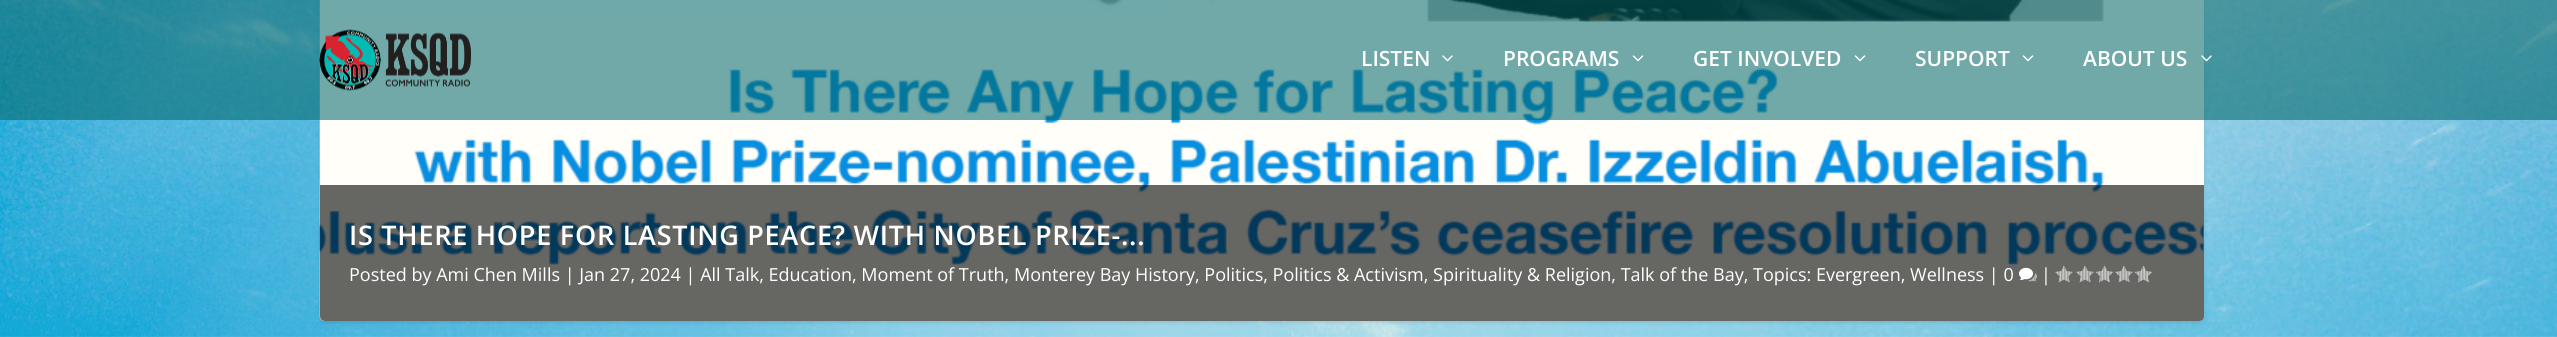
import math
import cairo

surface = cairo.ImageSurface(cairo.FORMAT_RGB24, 2557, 337)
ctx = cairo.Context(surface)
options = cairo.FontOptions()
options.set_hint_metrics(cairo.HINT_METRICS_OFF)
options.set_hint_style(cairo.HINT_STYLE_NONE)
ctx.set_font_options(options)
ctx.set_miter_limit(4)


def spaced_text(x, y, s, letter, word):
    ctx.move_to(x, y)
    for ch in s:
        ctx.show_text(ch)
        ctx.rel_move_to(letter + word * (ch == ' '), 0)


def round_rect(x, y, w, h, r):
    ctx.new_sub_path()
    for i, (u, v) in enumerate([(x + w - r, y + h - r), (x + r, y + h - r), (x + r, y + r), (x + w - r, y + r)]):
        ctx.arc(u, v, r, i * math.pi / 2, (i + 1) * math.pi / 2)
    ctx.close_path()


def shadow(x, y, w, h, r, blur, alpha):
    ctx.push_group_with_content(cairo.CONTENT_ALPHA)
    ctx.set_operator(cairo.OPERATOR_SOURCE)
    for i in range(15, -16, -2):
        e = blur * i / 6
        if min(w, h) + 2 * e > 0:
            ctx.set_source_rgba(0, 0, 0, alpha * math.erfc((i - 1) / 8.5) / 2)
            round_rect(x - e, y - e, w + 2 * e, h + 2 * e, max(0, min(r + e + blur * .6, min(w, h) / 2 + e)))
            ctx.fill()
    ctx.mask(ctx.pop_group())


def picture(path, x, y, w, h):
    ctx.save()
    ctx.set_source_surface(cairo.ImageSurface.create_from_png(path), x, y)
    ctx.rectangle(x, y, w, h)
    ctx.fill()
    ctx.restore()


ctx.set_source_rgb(1, 1, 1)
ctx.paint()
picture("img1.png", 0, 0, 2557, 337)
ctx.set_source_rgb(0, 0, 0)
shadow(320, -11, 1884, 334, 5, 2, 0.1)
ctx.set_source_rgb(1, 1, 1)
round_rect(320, -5, 1884, 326, 5)
ctx.fill()
picture("img6.png", 319, 0, 1885, 321)
ctx.set_source_rgba(0, 0.4, 0.408, 0.56)
ctx.rectangle(0, 0, 2557, 120)
ctx.fill()
picture("img2.png", 319, 29, 152, 62)
ctx.select_font_face("Open Sans SemiBold")
ctx.set_font_size(21)
ctx.set_source_rgb(1, 1, 1)
ctx.move_to(1361, 66)
ctx.show_text("LISTEN")
picture("img3.png", 1442, 55, 11, 7)
ctx.move_to(1503, 66)
ctx.show_text("PROGRAMS")
picture("img4.png", 1632, 55, 12, 7)
ctx.move_to(1693, 66)
ctx.show_text("GET INVOLVED")
picture("img4.png", 1854, 55, 12, 7)
ctx.move_to(1915, 66)
ctx.show_text("SUPPORT")
picture("img4.png", 2022, 55, 12, 7)
ctx.move_to(2083, 66)
ctx.show_text("ABOUT US")
picture("img5.png", 2201, 55, 11, 7)
ctx.set_source_rgba(0, 0, 0, 0.6)
ctx.new_path()
ctx.move_to(320, 185)
ctx.line_to(2204, 185)
ctx.line_to(2204, 316)
ctx.curve_to(2204, 319, 2202, 321, 2199, 321)
ctx.line_to(325, 321)
ctx.curve_to(322, 321, 320, 319, 320, 316)
ctx.close_path()
ctx.fill()
ctx.set_font_size(27)
ctx.set_source_rgb(1, 1, 1)
spaced_text(349, 245, "IS THERE HOPE FOR LASTING PEACE? WITH NOBEL PRIZE-...", 0.75, 0)
ctx.select_font_face("Open Sans")
ctx.set_font_size(18)
ctx.move_to(349, 281)
ctx.show_text("Posted by Ami Chen Mills | Jan 27, 2024 | All Talk, Education, Moment of Truth, Monterey Bay History, Politics, Politics & Activism, Spirituality & Religion, Talk of the Bay, Topics: Evergreen, Wellness | 0")
picture("img7.png", 2019, 267, 18, 15)
ctx.move_to(2041, 281)
ctx.show_text("|")
picture("img8.png", 2055, 265, 18, 18)
picture("img8.png", 2076, 265, 18, 18)
picture("img9.png", 2095, 265, 19, 18)
picture("img8.png", 2115, 265, 18, 18)
picture("img9.png", 2134, 265, 19, 18)
surface.write_to_png("page.png")
